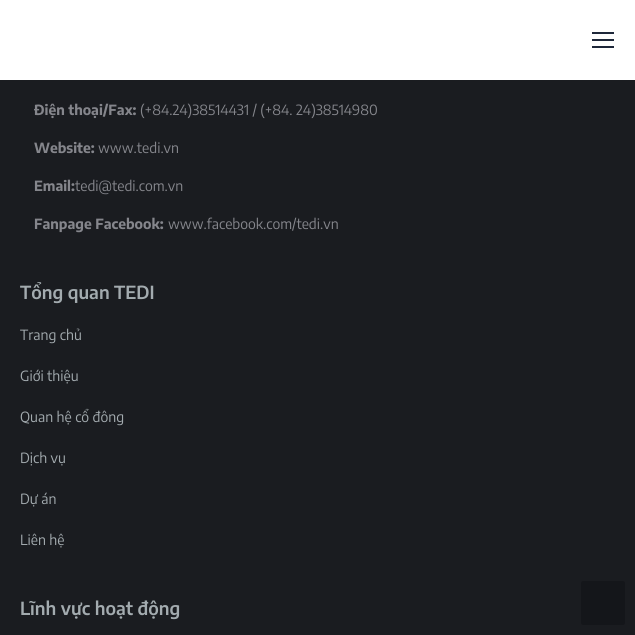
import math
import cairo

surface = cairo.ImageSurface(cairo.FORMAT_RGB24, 635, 635)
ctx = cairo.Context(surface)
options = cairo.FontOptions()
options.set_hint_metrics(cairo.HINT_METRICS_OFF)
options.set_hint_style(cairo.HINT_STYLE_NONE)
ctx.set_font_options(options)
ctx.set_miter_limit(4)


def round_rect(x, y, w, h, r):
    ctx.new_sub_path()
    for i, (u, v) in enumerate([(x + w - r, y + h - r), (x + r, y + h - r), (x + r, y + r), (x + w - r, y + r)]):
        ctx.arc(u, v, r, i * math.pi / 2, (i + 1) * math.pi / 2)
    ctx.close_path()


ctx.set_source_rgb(0.102, 0.11, 0.125)
ctx.paint()
ctx.set_source_rgb(1, 1, 1)
ctx.rectangle(0, 0, 635, 80)
ctx.fill()
ctx.set_source_rgb(0.118, 0.157, 0.227)
ctx.rectangle(592, 39, 22, 2)
ctx.fill()
ctx.rectangle(592, 32, 22, 2)
ctx.fill()
ctx.rectangle(592, 46, 22, 2)
ctx.fill()
ctx.select_font_face("Encode Sans Condensed", cairo.FONT_SLANT_NORMAL, cairo.FONT_WEIGHT_BOLD)
ctx.set_font_size(14)
ctx.set_source_rgb(0.522, 0.525, 0.549)
ctx.move_to(34, 115)
ctx.show_text("Điện thoại/Fax:")
ctx.select_font_face("Encode Sans Condensed")
ctx.move_to(140, 115)
ctx.show_text("(+84.24)38514431 / (+84. 24)38514980")
ctx.select_font_face("Encode Sans Condensed", cairo.FONT_SLANT_NORMAL, cairo.FONT_WEIGHT_BOLD)
ctx.move_to(34, 153)
ctx.show_text("Website:")
ctx.select_font_face("Encode Sans Condensed")
ctx.move_to(98, 153)
ctx.show_text("www.tedi.vn")
ctx.select_font_face("Encode Sans Condensed", cairo.FONT_SLANT_NORMAL, cairo.FONT_WEIGHT_BOLD)
ctx.move_to(34, 191)
ctx.show_text("Email:")
ctx.select_font_face("Encode Sans Condensed")
ctx.move_to(75, 191)
ctx.show_text("tedi@tedi.com.vn")
ctx.select_font_face("Encode Sans Condensed", cairo.FONT_SLANT_NORMAL, cairo.FONT_WEIGHT_BOLD)
ctx.move_to(34, 229)
ctx.show_text("Fanpage Facebook:")
ctx.select_font_face("Encode Sans Condensed")
ctx.move_to(168, 229)
ctx.show_text("www.facebook.com/tedi.vn")
ctx.select_font_face("Encode Sans Condensed SemiBold")
ctx.set_font_size(18)
ctx.set_source_rgb(0.639, 0.671, 0.686)
ctx.move_to(20, 299)
ctx.show_text("Tổng quan TEDI")
ctx.select_font_face("Encode Sans Condensed")
ctx.set_font_size(14)
ctx.move_to(20, 340)
ctx.show_text("Trang chủ")
ctx.move_to(20, 381)
ctx.show_text("Giới thiệu")
ctx.move_to(20, 422)
ctx.show_text("Quan hệ cổ đông")
ctx.move_to(20, 463)
ctx.show_text("Dịch vụ")
ctx.move_to(20, 504)
ctx.show_text("Dự án")
ctx.move_to(20, 545)
ctx.show_text("Liên hệ")
ctx.select_font_face("Encode Sans Condensed SemiBold")
ctx.set_font_size(18)
ctx.move_to(20, 615)
ctx.show_text("Lĩnh vực hoạt động")
ctx.set_source_rgb(0.082, 0.086, 0.102)
round_rect(581, 581, 44, 44, 2)
ctx.fill()
surface.write_to_png("page.png")
